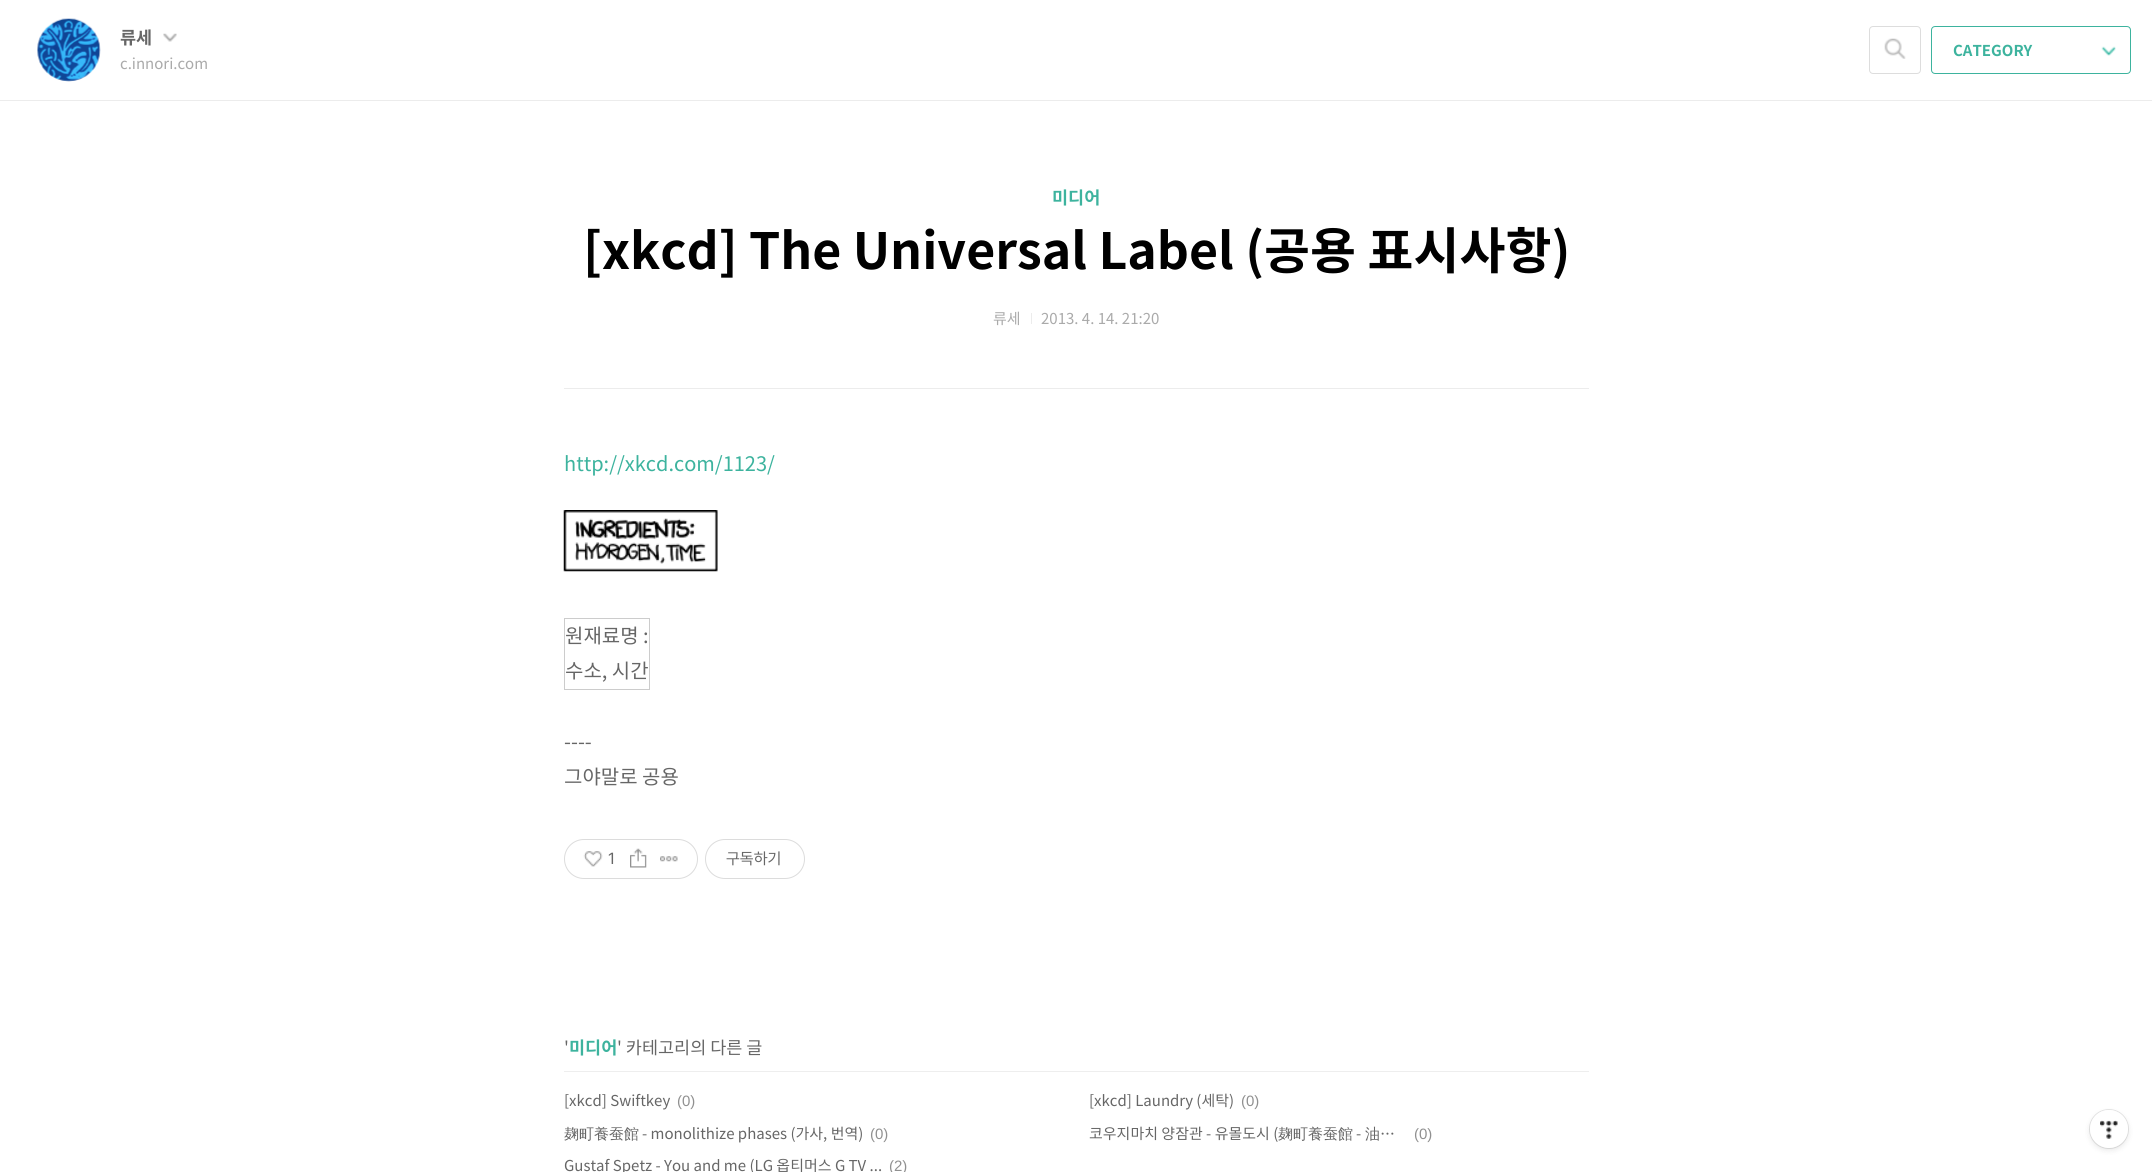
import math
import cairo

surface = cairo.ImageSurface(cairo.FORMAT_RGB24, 2152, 1172)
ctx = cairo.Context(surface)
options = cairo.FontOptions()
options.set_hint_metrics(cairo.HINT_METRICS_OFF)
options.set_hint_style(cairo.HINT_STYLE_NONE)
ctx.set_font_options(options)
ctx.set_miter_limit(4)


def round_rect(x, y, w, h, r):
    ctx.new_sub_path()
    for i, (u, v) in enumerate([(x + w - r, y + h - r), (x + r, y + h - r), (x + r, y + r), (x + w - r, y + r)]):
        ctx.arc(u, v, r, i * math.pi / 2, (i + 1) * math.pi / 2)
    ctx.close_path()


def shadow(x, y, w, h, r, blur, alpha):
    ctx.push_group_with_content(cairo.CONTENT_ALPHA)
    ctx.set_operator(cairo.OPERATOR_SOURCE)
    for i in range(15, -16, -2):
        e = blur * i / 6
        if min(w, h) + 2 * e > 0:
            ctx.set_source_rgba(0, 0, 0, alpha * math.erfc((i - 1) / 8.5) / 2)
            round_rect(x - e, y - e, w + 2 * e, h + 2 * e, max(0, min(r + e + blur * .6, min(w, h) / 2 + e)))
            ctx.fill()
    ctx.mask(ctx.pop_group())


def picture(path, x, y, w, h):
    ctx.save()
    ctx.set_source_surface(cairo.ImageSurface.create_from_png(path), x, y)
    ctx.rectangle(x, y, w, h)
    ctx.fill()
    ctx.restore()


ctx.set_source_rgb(1, 1, 1)
ctx.paint()
ctx.set_source_rgb(0.922, 0.922, 0.922)
ctx.rectangle(0, 100, 2152, 1)
ctx.fill()
picture("img1.png", 37, 18, 64, 64)
ctx.select_font_face("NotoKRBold", cairo.FONT_SLANT_NORMAL, cairo.FONT_WEIGHT_BOLD)
ctx.set_font_size(17.5)
ctx.set_source_rgb(0.4, 0.4, 0.4)
ctx.move_to(120, 44)
ctx.show_text("류세")
picture("img2.png", 163, 33, 14, 9)
ctx.select_font_face("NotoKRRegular")
ctx.set_font_size(15)
ctx.set_source_rgb(0.667, 0.667, 0.667)
ctx.move_to(120, 69)
ctx.show_text("c.innori.com")
round_rect(1869.5, 26.5, 51, 47, 3.5)
ctx.set_source_rgb(0.867, 0.867, 0.867)
ctx.set_line_width(1)
ctx.stroke()
picture("img3.png", 1884, 38, 22, 21)
round_rect(1931.5, 26.5, 199, 47, 3.5)
ctx.set_source_rgb(0.239, 0.702, 0.62)
ctx.stroke()
ctx.select_font_face("NotoKRBold", cairo.FONT_SLANT_NORMAL, cairo.FONT_WEIGHT_BOLD)
ctx.move_to(1953, 56)
ctx.show_text("CATEGORY")
picture("img4.png", 2101, 46, 15, 10)
ctx.set_source_rgb(0.922, 0.922, 0.922)
ctx.rectangle(564, 388, 1025, 1)
ctx.fill()
ctx.set_font_size(17.5)
ctx.set_source_rgb(0.239, 0.702, 0.62)
ctx.move_to(1052, 204)
ctx.show_text("미디어")
ctx.set_font_size(50)
ctx.set_source_rgb(0, 0, 0)
ctx.move_to(583, 269)
ctx.show_text("[xkcd] The Universal Label (공용 표시사항)")
ctx.select_font_face("NotoKRRegular")
ctx.set_font_size(15)
ctx.set_source_rgb(0.667, 0.667, 0.667)
ctx.move_to(993, 324)
ctx.show_text("류세")
ctx.set_source_rgb(0.922, 0.922, 0.922)
ctx.rectangle(1031, 313, 1, 11)
ctx.fill()
ctx.set_source_rgb(0.667, 0.667, 0.667)
ctx.move_to(1041, 324)
ctx.show_text("2013. 4. 14. 21:20")
ctx.set_font_size(20)
ctx.set_source_rgb(0.239, 0.702, 0.62)
ctx.move_to(564, 471)
ctx.show_text("http://xkcd.com/1123/")
picture("img5.png", 563, 510, 155, 62)
ctx.set_source_rgb(0.8, 0.8, 0.8)
ctx.rectangle(564, 618, 86, 1)
ctx.fill()
ctx.rectangle(649, 618, 1, 72)
ctx.fill()
ctx.rectangle(564, 689, 86, 1)
ctx.fill()
ctx.rectangle(564, 618, 1, 72)
ctx.fill()
ctx.set_source_rgb(0.4, 0.4, 0.4)
ctx.move_to(565, 643)
ctx.show_text("원재료명 :")
ctx.move_to(565, 678)
ctx.show_text("수소, 시간")
ctx.move_to(564, 749)
ctx.show_text("----")
ctx.move_to(564, 784)
ctx.show_text("그야말로 공용")
round_rect(564.5, 839.5, 133, 39, 19.5)
ctx.set_source_rgb(0.863, 0.863, 0.863)
ctx.stroke()
picture("img6.png", 583, 851, 20, 16)
ctx.select_font_face("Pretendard")
ctx.set_font_size(16)
ctx.set_source_rgb(0.4, 0.4, 0.4)
ctx.move_to(608, 864)
ctx.show_text("1")
picture("img7.png", 630, 848, 17, 20)
picture("img8.png", 660, 856, 18, 6)
round_rect(705.5, 839.5, 99, 39, 19.5)
ctx.set_source_rgb(0.863, 0.863, 0.863)
ctx.stroke()
ctx.set_source_rgb(0.4, 0.4, 0.4)
ctx.move_to(726, 864)
ctx.show_text("구독하기")
ctx.set_source_rgb(0.933, 0.933, 0.933)
ctx.rectangle(564, 1071, 1025, 1)
ctx.fill()
ctx.select_font_face("NotoKRRegular")
ctx.set_font_size(17.5)
ctx.set_source_rgb(0.4, 0.4, 0.4)
ctx.move_to(564, 1054)
ctx.show_text("'")
ctx.select_font_face("NotoKRBold", cairo.FONT_SLANT_NORMAL, cairo.FONT_WEIGHT_BOLD)
ctx.set_source_rgb(0.239, 0.702, 0.62)
ctx.move_to(569, 1054)
ctx.show_text("미디어")
ctx.select_font_face("NotoKRRegular")
ctx.set_source_rgb(0.4, 0.4, 0.4)
ctx.move_to(617, 1054)
ctx.show_text("' 카테고리의 다른 글")
ctx.set_font_size(15)
ctx.move_to(564, 1106)
ctx.show_text("[xkcd] Swiftkey")
ctx.select_font_face("Liberation Sans")
ctx.set_source_rgb(0.565, 0.565, 0.565)
ctx.move_to(677, 1106)
ctx.show_text("(0)")
ctx.select_font_face("NotoKRRegular")
ctx.set_source_rgb(0.4, 0.4, 0.4)
ctx.move_to(1089, 1106)
ctx.show_text("[xkcd] Laundry (세탁)")
ctx.select_font_face("Liberation Sans")
ctx.set_source_rgb(0.565, 0.565, 0.565)
ctx.move_to(1241, 1106)
ctx.show_text("(0)")
ctx.select_font_face("WenQuanYi Zen Hei Medium")
ctx.set_source_rgb(0.4, 0.4, 0.4)
ctx.move_to(564, 1139)
ctx.show_text("麹町養蚕館")
ctx.select_font_face("NotoKRRegular")
ctx.move_to(642, 1139)
ctx.show_text("- monolithize phases (가사, 번역)")
ctx.select_font_face("Liberation Sans")
ctx.set_source_rgb(0.565, 0.565, 0.565)
ctx.move_to(870, 1139)
ctx.show_text("(0)")
ctx.select_font_face("NotoKRRegular")
ctx.set_source_rgb(0.4, 0.4, 0.4)
ctx.move_to(1089, 1139)
ctx.show_text("코우지마치 양잠관 - 유몰도시 (")
ctx.select_font_face("WenQuanYi Zen Hei Medium")
ctx.move_to(1278, 1139)
ctx.show_text("麹町養蚕館")
ctx.select_font_face("NotoKRRegular")
ctx.move_to(1356, 1139)
ctx.show_text("-")
ctx.select_font_face("WenQuanYi Zen Hei Medium")
ctx.move_to(1365, 1139)
ctx.show_text("油…")
ctx.select_font_face("Liberation Sans")
ctx.set_source_rgb(0.565, 0.565, 0.565)
ctx.move_to(1414, 1139)
ctx.show_text("(0)")
ctx.select_font_face("NotoKRRegular")
ctx.set_source_rgb(0.4, 0.4, 0.4)
ctx.move_to(564, 1171)
ctx.show_text("Gustaf Spetz - You and me (LG 옵티머스 G TV ...")
ctx.select_font_face("Liberation Sans")
ctx.set_source_rgb(0.565, 0.565, 0.565)
ctx.move_to(889, 1171)
ctx.show_text("(2)")
ctx.set_source_rgb(0, 0, 0)
shadow(2090, 1113, 38, 37, 18.5, 3, 0.1)
ctx.arc(2109, 1129, 19.5, 0, 2 * math.pi)
ctx.set_source_rgba(0, 0, 0, 0.1)
ctx.stroke()
ctx.set_source_rgb(1, 1, 1)
ctx.arc(2109, 1129, 19, 0, 2 * math.pi)
ctx.fill()
picture("img9.png", 2100, 1120, 18, 19)
surface.write_to_png("page.png")
